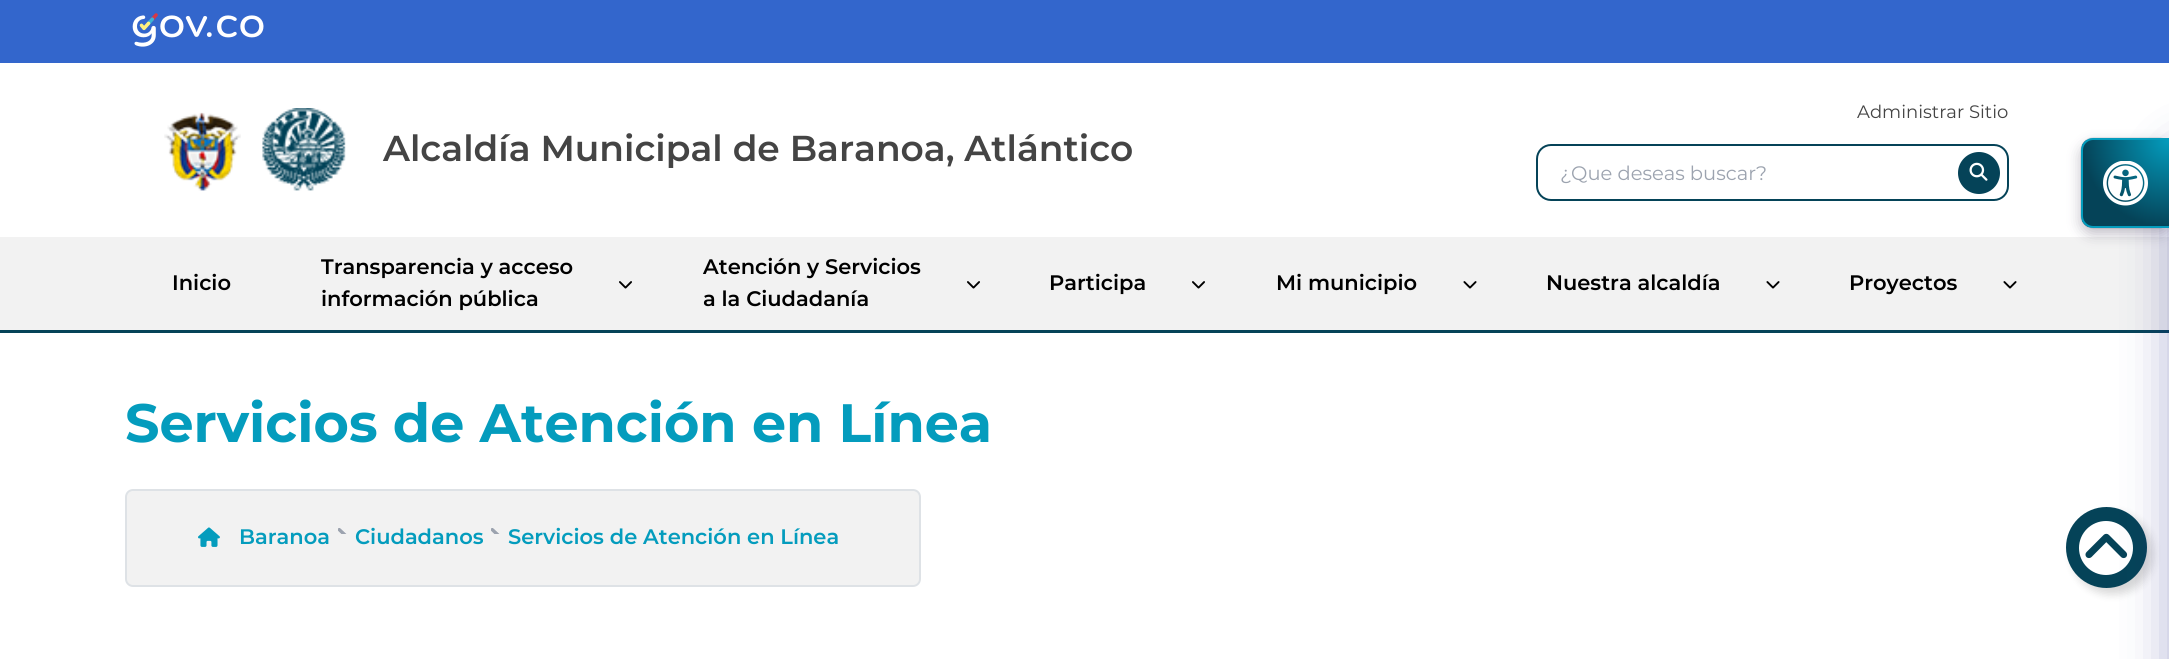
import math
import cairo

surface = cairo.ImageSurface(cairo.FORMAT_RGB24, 2169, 659)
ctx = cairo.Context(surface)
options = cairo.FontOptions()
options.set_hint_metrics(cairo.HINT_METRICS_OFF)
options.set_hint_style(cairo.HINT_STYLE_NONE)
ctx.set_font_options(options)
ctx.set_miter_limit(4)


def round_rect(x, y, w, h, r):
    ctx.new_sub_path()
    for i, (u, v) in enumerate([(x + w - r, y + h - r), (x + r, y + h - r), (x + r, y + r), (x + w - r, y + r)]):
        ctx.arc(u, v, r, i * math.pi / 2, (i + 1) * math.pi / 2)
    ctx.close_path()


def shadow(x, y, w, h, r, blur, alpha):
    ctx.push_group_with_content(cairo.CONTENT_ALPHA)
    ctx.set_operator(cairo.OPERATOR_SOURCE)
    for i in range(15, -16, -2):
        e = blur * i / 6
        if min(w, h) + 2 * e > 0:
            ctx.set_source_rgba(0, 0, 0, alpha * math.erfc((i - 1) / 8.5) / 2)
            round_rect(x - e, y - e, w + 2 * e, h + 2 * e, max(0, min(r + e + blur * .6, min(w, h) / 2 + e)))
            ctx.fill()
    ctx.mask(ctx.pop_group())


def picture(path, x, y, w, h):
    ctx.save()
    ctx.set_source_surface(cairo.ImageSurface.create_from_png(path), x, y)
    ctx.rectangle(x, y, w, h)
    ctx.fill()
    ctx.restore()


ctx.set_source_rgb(1, 1, 1)
ctx.paint()
ctx.set_source_rgb(0.2, 0.4, 0.8)
ctx.rectangle(0, 0, 2169, 63)
ctx.fill()
picture("img1.png", 132, 13, 132, 34)
picture("img2.png", 164, 112, 77, 79)
picture("img3.png", 262, 108, 84, 83)
ctx.select_font_face("Montserrat SemiBold")
ctx.set_font_size(36)
ctx.set_source_rgb(0.267, 0.267, 0.267)
ctx.move_to(383, 161)
ctx.show_text("Alcaldía Municipal de Baranoa, Atlántico")
ctx.select_font_face("Montserrat")
ctx.set_font_size(18)
ctx.move_to(1857, 118)
ctx.show_text("Administrar Sitio")
round_rect(1537, 145, 471, 55, 14)
ctx.set_source_rgb(0.02, 0.263, 0.345)
ctx.stroke()
ctx.set_font_size(19.5)
ctx.set_source_rgb(0.612, 0.639, 0.686)
ctx.move_to(1560, 180)
ctx.show_text("¿Que deseas buscar?")
ctx.set_source_rgb(0.02, 0.263, 0.345)
ctx.new_path()
ctx.arc(1979, 173, 21, 0, 2 * math.pi)
ctx.fill()
picture("img4.png", 1969, 162, 19, 19)
ctx.set_source_rgb(0.949, 0.949, 0.949)
ctx.rectangle(0, 237, 2169, 93)
ctx.fill()
ctx.set_source_rgb(0.02, 0.263, 0.345)
ctx.rectangle(0, 330, 2169, 3)
ctx.fill()
ctx.select_font_face("Montserrat SemiBold")
ctx.set_font_size(21)
ctx.set_source_rgb(0, 0, 0)
ctx.move_to(172, 290)
ctx.show_text("Inicio")
ctx.move_to(321, 274)
ctx.show_text("Transparencia y acceso")
ctx.move_to(321, 306)
ctx.show_text("información pública")
picture("img5.png", 619, 281, 13, 8)
ctx.move_to(703, 274)
ctx.show_text("Atención y Servicios")
ctx.move_to(703, 306)
ctx.show_text("a la Ciudadanía")
picture("img5.png", 967, 281, 13, 8)
ctx.move_to(1049, 290)
ctx.show_text("Participa")
picture("img5.png", 1192, 281, 13, 8)
ctx.move_to(1276, 290)
ctx.show_text("Mi municipio")
picture("img6.png", 1463, 281, 14, 8)
ctx.move_to(1546, 290)
ctx.show_text("Nuestra alcaldía")
picture("img6.png", 1766, 281, 14, 8)
ctx.move_to(1849, 290)
ctx.show_text("Proyectos")
picture("img6.png", 2003, 281, 14, 8)
ctx.select_font_face("Montserrat", cairo.FONT_SLANT_NORMAL, cairo.FONT_WEIGHT_BOLD)
ctx.set_font_size(54)
ctx.set_source_rgb(0.016, 0.612, 0.741)
ctx.move_to(125, 442)
ctx.show_text("Servicios de Atención en Línea")
ctx.set_source_rgb(0.949, 0.949, 0.949)
round_rect(126, 490, 794, 96, 7)
ctx.fill_preserve()
ctx.set_source_rgb(0.871, 0.886, 0.902)
ctx.stroke()
picture("img7.png", 198, 527, 22, 20)
ctx.select_font_face("Montserrat SemiBold")
ctx.set_font_size(21)
ctx.set_source_rgb(0.016, 0.612, 0.741)
ctx.move_to(239, 544)
ctx.show_text("Baranoa")
picture("img8.png", 338, 528, 9, 6)
ctx.move_to(355, 544)
ctx.show_text("Ciudadanos")
picture("img8.png", 491, 528, 9, 6)
ctx.move_to(508, 544)
ctx.show_text("Servicios de Atención en Línea")
ctx.set_source_rgb(0, 0, 0)
shadow(2072, 513, 81, 81, 40.5, 4.5, 0.16)
ctx.set_source_rgb(0.02, 0.263, 0.345)
ctx.arc(2106.5, 547.5, 40.5, 0, 2 * math.pi)
ctx.fill()
ctx.set_source_rgb(1, 1, 1)
ctx.arc(2106, 548, 27, 0, 2 * math.pi)
ctx.fill()
picture("img9.png", 2085, 533, 43, 26)
ctx.set_source_rgb(0.122, 0.149, 0.529)
shadow(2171, 150, 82, 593, 12, 24, 0.37)
ctx.set_source_rgb(0.176, 0.137, 0.259)
shadow(2081, 144, 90, 90, 12, 7, 0.3)
shadow(2081, 138, 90, 90, 12, 0.5, 0.4)
ctx.save()
ctx.new_path()
ctx.move_to(2093, 138)
ctx.line_to(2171, 138)
ctx.line_to(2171, 228)
ctx.line_to(2093, 228)
ctx.curve_to(2086.5, 228, 2081, 222.5, 2081, 216)
ctx.line_to(2081, 150)
ctx.curve_to(2081, 143.5, 2086.5, 138, 2093, 138)
ctx.close_path()
ctx.clip()
gradient = cairo.RadialGradient(2169, 140, 0, 2169, 140, 87)
gradient.add_color_stop_rgba(0, 0.016, 0.612, 0.741, 1)
gradient.add_color_stop_rgba(1, 0.02, 0.263, 0.345, 1)
ctx.set_source(gradient)
ctx.rectangle(2082, 140, 87, 87)
ctx.fill()
ctx.restore()
ctx.new_path()
ctx.move_to(2093, 139)
ctx.line_to(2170, 139)
ctx.line_to(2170, 227)
ctx.line_to(2093, 227)
ctx.curve_to(2087, 227, 2082, 222, 2082, 216)
ctx.line_to(2082, 150)
ctx.curve_to(2082, 144, 2087, 139, 2093, 139)
ctx.close_path()
ctx.set_source_rgb(0.016, 0.612, 0.741)
ctx.stroke()
picture("img10.png", 2103, 161, 45, 45)
surface.write_to_png("page.png")
